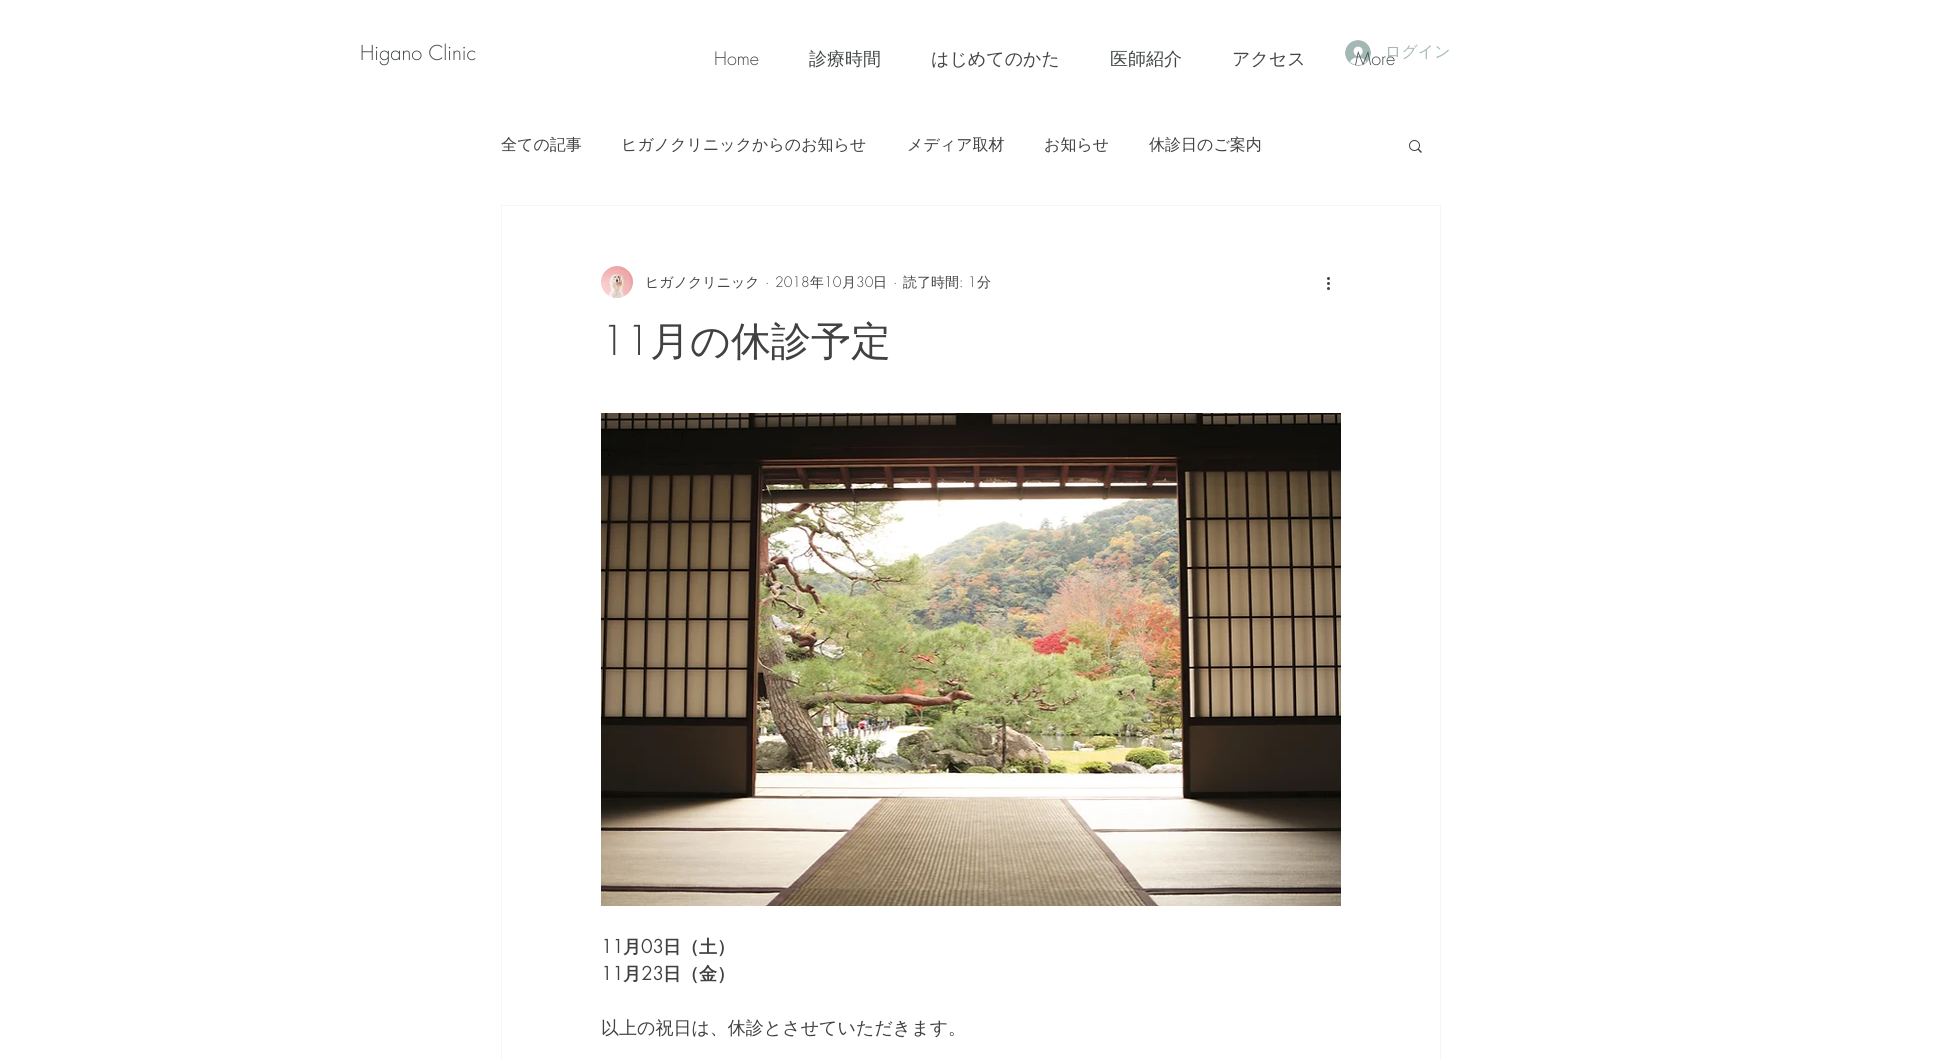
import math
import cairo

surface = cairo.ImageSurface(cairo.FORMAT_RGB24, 1941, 1059)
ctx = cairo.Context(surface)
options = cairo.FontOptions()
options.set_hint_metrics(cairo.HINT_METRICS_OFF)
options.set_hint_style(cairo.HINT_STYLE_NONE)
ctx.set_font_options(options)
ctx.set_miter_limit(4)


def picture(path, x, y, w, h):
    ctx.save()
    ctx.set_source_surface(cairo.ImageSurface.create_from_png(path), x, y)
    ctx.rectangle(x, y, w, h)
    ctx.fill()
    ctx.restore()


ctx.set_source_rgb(1, 1, 1)
ctx.paint()
ctx.select_font_face("futura Light")
ctx.set_font_size(20)
ctx.set_source_rgb(0.259, 0.278, 0.275)
ctx.move_to(360, 60)
ctx.show_text("Higano Clinic")
ctx.set_font_size(18)
ctx.move_to(714, 65)
ctx.show_text("Home")
ctx.select_font_face("WenQuanYi Zen Hei Medium")
ctx.move_to(809, 65)
ctx.show_text("診療時間")
ctx.move_to(931, 65)
ctx.show_text("はじめてのかた")
ctx.move_to(1110, 65)
ctx.show_text("医師紹介")
ctx.move_to(1232, 65)
ctx.show_text("アクセス")
picture("img1.png", 1345, 40, 26, 26)
ctx.set_font_size(16)
ctx.set_source_rgb(0.639, 0.722, 0.706)
ctx.move_to(1385, 57)
ctx.show_text("ログイン")
ctx.select_font_face("futura Light")
ctx.set_font_size(18)
ctx.set_source_rgb(0.259, 0.278, 0.275)
ctx.move_to(1355, 65)
ctx.show_text("More")
ctx.select_font_face("WenQuanYi Zen Hei Medium")
ctx.set_font_size(16)
ctx.set_source_rgb(0.255, 0.255, 0.255)
ctx.move_to(501, 150)
ctx.show_text("全ての記事")
ctx.move_to(621, 150)
ctx.show_text("ヒガノクリニックからのお知らせ")
ctx.move_to(907, 150)
ctx.show_text("メディア取材")
ctx.move_to(1044, 150)
ctx.show_text("お知らせ")
ctx.move_to(1149, 150)
ctx.show_text("休診日のご案内")
picture("img2.png", 1409, 140, 13, 13)
ctx.rectangle(501.5, 205.5, 939, 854)
ctx.set_source_rgb(0.961, 0.961, 0.961)
ctx.set_line_width(1)
ctx.stroke()
picture("img3.png", 601, 266, 32, 32)
ctx.set_font_size(14)
ctx.set_source_rgb(0.255, 0.255, 0.255)
ctx.move_to(645, 287)
ctx.show_text("ヒガノクリニック")
ctx.select_font_face("futura Light")
ctx.move_to(765, 287)
ctx.show_text("·")
ctx.move_to(775, 287)
ctx.show_text("2018")
ctx.select_font_face("WenQuanYi Zen Hei Medium")
ctx.move_to(810, 287)
ctx.show_text("年")
ctx.select_font_face("futura Light")
ctx.move_to(824, 287)
ctx.show_text("10")
ctx.select_font_face("WenQuanYi Zen Hei Medium")
ctx.move_to(842, 287)
ctx.show_text("月")
ctx.select_font_face("futura Light")
ctx.move_to(856, 287)
ctx.show_text("30")
ctx.select_font_face("WenQuanYi Zen Hei Medium")
ctx.move_to(873, 287)
ctx.show_text("日")
ctx.select_font_face("futura Light")
ctx.move_to(893, 287)
ctx.show_text("·")
ctx.select_font_face("WenQuanYi Zen Hei Medium")
ctx.move_to(903, 287)
ctx.show_text("読了時間")
ctx.select_font_face("futura Light")
ctx.move_to(959, 287)
ctx.show_text(": 1")
ctx.select_font_face("WenQuanYi Zen Hei Medium")
ctx.move_to(977, 287)
ctx.show_text("分")
picture("img4.png", 1327, 277, 3, 13)
ctx.select_font_face("futura Light")
ctx.set_font_size(40)
ctx.move_to(601, 355)
ctx.show_text("11")
ctx.select_font_face("WenQuanYi Zen Hei Medium")
ctx.move_to(650, 355)
ctx.show_text("月の休診予定")
picture("img5.png", 601, 413, 740, 493)
ctx.select_font_face("futura", cairo.FONT_SLANT_NORMAL, cairo.FONT_WEIGHT_BOLD)
ctx.set_font_size(18)
ctx.move_to(601, 953)
ctx.show_text("11")
ctx.select_font_face("WenQuanYi Zen Hei", cairo.FONT_SLANT_NORMAL, cairo.FONT_WEIGHT_BOLD)
ctx.move_to(623, 953)
ctx.show_text("月")
ctx.select_font_face("futura", cairo.FONT_SLANT_NORMAL, cairo.FONT_WEIGHT_BOLD)
ctx.move_to(641, 953)
ctx.show_text("03")
ctx.select_font_face("WenQuanYi Zen Hei", cairo.FONT_SLANT_NORMAL, cairo.FONT_WEIGHT_BOLD)
ctx.move_to(663, 953)
ctx.show_text("日（土）")
ctx.select_font_face("futura", cairo.FONT_SLANT_NORMAL, cairo.FONT_WEIGHT_BOLD)
ctx.move_to(601, 980)
ctx.show_text("11")
ctx.select_font_face("WenQuanYi Zen Hei", cairo.FONT_SLANT_NORMAL, cairo.FONT_WEIGHT_BOLD)
ctx.move_to(623, 980)
ctx.show_text("月")
ctx.select_font_face("futura", cairo.FONT_SLANT_NORMAL, cairo.FONT_WEIGHT_BOLD)
ctx.move_to(641, 980)
ctx.show_text("23")
ctx.select_font_face("WenQuanYi Zen Hei", cairo.FONT_SLANT_NORMAL, cairo.FONT_WEIGHT_BOLD)
ctx.move_to(663, 980)
ctx.show_text("日（金）")
ctx.select_font_face("WenQuanYi Zen Hei Medium")
ctx.move_to(601, 1034)
ctx.show_text("以上の祝日は、休診とさせていただきます。")
surface.write_to_png("page.png")
